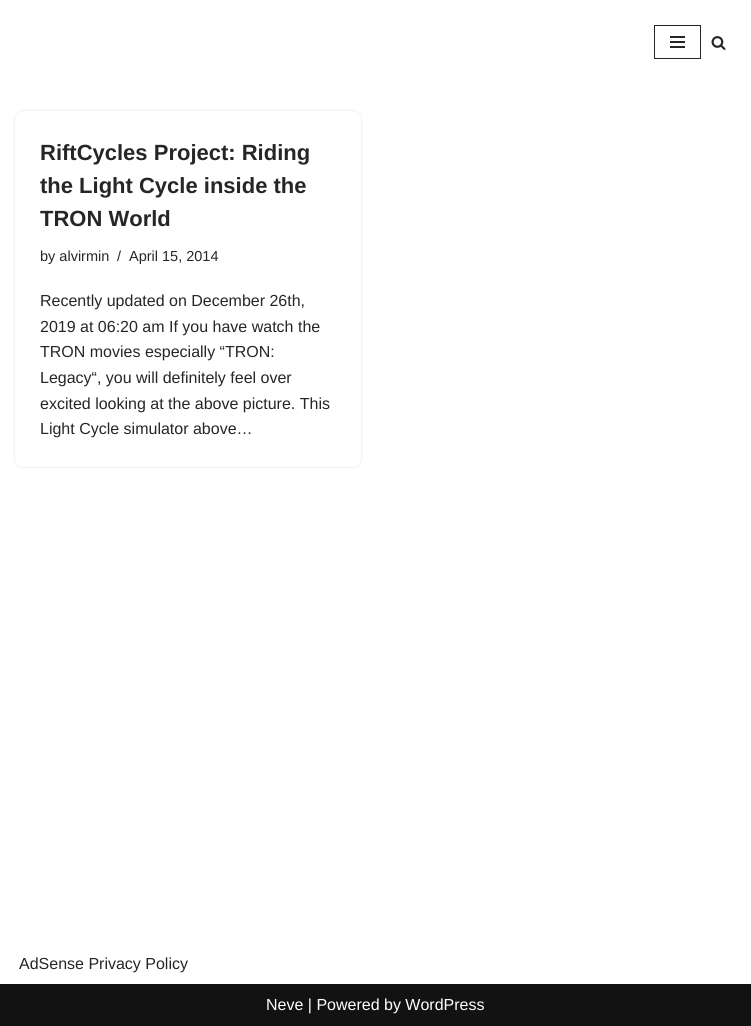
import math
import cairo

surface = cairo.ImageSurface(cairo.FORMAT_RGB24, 751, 1026)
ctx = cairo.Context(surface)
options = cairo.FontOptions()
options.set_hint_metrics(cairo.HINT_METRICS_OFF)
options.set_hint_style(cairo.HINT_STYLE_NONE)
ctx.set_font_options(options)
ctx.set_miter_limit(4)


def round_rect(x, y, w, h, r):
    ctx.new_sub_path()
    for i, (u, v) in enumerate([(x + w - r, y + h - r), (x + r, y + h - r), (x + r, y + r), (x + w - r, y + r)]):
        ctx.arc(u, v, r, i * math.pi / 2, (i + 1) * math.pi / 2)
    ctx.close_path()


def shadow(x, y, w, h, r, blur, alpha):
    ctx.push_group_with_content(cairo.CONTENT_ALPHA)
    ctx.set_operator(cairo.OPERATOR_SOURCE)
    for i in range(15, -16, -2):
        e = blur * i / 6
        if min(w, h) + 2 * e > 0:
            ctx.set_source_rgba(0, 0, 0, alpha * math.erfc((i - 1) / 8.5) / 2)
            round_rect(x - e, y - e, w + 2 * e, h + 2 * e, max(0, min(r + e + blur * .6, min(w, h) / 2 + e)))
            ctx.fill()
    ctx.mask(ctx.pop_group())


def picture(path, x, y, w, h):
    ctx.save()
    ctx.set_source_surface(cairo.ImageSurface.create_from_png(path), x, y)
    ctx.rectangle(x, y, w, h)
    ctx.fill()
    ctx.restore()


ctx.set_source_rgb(1, 1, 1)
ctx.paint()
ctx.rectangle(654.5, 25.5, 46, 33)
ctx.set_source_rgb(0.153, 0.149, 0.149)
ctx.set_line_width(1)
ctx.stroke()
ctx.rectangle(670, 36, 15, 2)
ctx.fill()
ctx.rectangle(670, 41, 15, 2)
ctx.fill()
ctx.rectangle(670, 46, 15, 2)
ctx.fill()
picture("img1.png", 711, 36, 15, 14)
ctx.set_source_rgb(0, 0, 0)
shadow(15, 111, 346, 356, 8, 1, 0.15)
ctx.set_source_rgb(1, 1, 1)
round_rect(15, 111, 346, 356, 8)
ctx.fill()
ctx.select_font_face("Liberation Sans", cairo.FONT_SLANT_NORMAL, cairo.FONT_WEIGHT_BOLD)
ctx.set_font_size(22)
ctx.set_source_rgb(0.153, 0.149, 0.149)
ctx.move_to(40, 160)
ctx.show_text("RiftCycles Project: Riding")
ctx.move_to(40, 193)
ctx.show_text("the Light Cycle inside the")
ctx.move_to(40, 226)
ctx.show_text("TRON World")
ctx.select_font_face("Liberation Sans")
ctx.set_font_size(14.5)
ctx.move_to(40, 261)
ctx.show_text("by alvirmin")
ctx.move_to(117, 261)
ctx.show_text("/")
ctx.move_to(129, 261)
ctx.show_text("April 15, 2014")
ctx.set_font_size(16)
ctx.move_to(40, 306)
ctx.show_text("Recently updated on December 26th,")
ctx.move_to(40, 332)
ctx.show_text("2019 at 06:20 am If you have watch the")
ctx.move_to(40, 357)
ctx.show_text("TRON movies especially “TRON:")
ctx.move_to(40, 383)
ctx.show_text("Legacy“, you will definitely feel over")
ctx.move_to(40, 409)
ctx.show_text("excited looking at the above picture. This")
ctx.move_to(40, 434)
ctx.show_text("Light Cycle simulator above…")
ctx.move_to(19, 969)
ctx.show_text("AdSense Privacy Policy")
ctx.set_source_rgb(0.071, 0.071, 0.071)
ctx.rectangle(0, 984, 751, 42)
ctx.fill()
ctx.set_source_rgb(1, 1, 1)
ctx.move_to(266, 1010)
ctx.show_text("Neve | Powered by WordPress")
surface.write_to_png("page.png")
